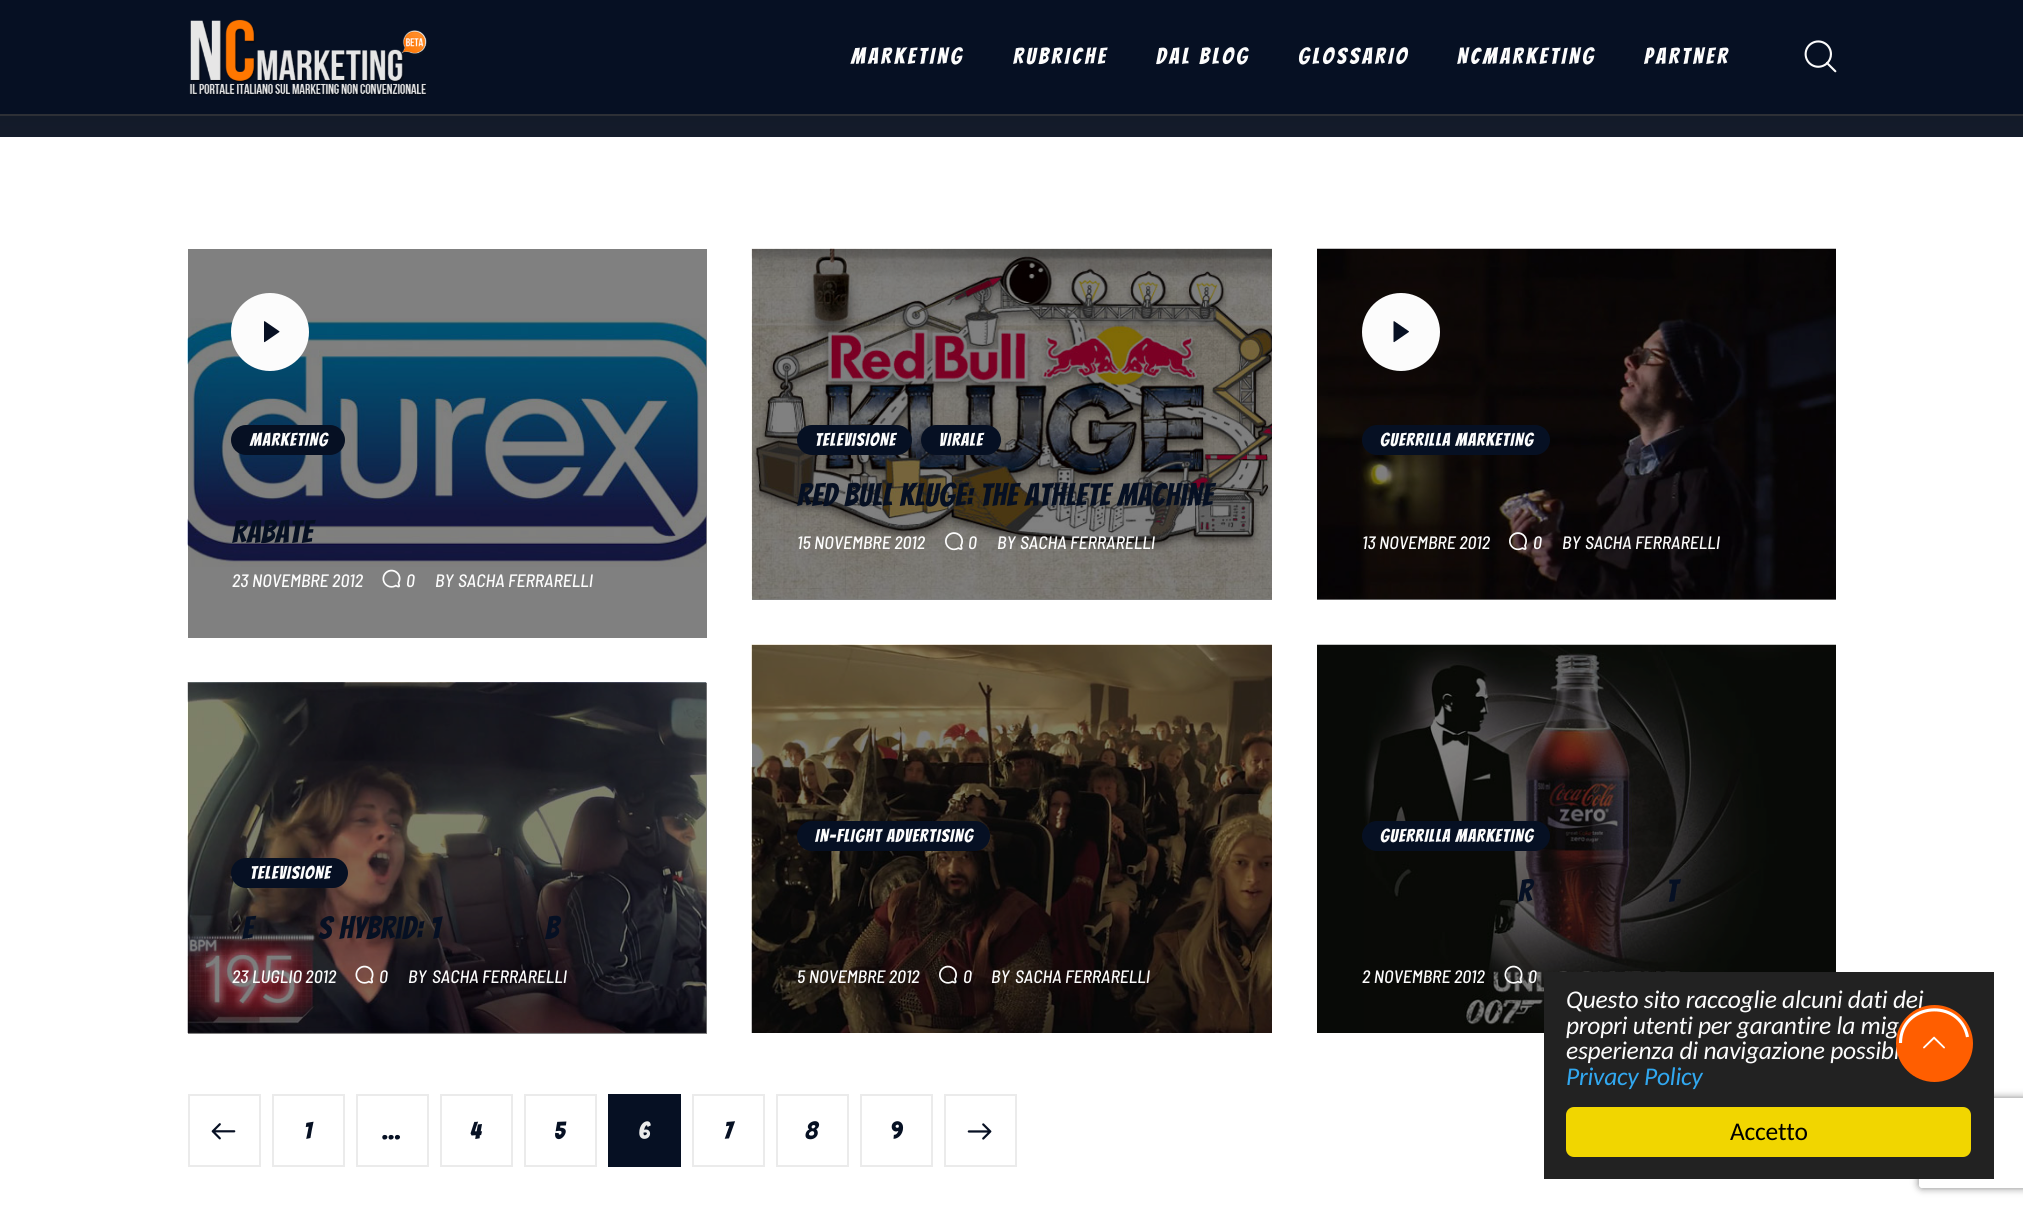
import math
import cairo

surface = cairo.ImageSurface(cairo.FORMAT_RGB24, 2023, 1209)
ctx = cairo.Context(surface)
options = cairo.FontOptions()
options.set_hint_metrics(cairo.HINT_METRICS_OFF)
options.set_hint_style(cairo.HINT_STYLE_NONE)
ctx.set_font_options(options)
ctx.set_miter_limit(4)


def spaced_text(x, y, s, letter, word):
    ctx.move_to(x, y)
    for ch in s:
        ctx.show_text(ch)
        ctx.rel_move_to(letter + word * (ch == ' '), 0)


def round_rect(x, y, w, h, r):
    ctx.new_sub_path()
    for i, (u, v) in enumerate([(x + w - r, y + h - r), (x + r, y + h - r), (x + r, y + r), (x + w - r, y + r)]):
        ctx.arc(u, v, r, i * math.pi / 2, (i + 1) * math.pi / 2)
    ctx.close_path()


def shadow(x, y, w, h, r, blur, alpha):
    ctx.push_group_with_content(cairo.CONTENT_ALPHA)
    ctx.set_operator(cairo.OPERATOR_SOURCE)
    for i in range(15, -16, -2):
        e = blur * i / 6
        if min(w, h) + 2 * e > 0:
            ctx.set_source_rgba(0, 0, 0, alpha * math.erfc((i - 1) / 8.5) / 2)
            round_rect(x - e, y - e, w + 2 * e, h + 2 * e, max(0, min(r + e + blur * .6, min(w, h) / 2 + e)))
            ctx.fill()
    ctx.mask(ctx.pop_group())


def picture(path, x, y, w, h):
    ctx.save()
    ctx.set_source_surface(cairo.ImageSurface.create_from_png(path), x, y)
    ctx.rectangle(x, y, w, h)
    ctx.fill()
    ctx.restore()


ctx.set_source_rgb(1, 1, 1)
ctx.paint()
ctx.set_source_rgb(0.502, 0.502, 0.502)
ctx.rectangle(188, 683, 519, 351)
ctx.fill()
ctx.rectangle(1317, 599, 519, 1)
ctx.fill()
ctx.rectangle(752, 599, 520, 1)
ctx.fill()
ctx.rectangle(188, 249, 519, 389)
ctx.fill()
ctx.set_source_rgb(0.082, 0.11, 0.169)
ctx.rectangle(0, 116, 2023, 21)
ctx.fill()
ctx.set_source_rgb(0, 0, 0)
shadow(-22, 5, 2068, 115, 0, 12, 0.08)
ctx.set_source_rgb(0.027, 0.063, 0.137)
ctx.rectangle(0, 0, 2023, 114)
ctx.fill()
ctx.set_source_rgb(0.176, 0.188, 0.212)
ctx.rectangle(0, 114, 2023, 2)
ctx.fill()
picture("img1.png", 189, 19, 238, 77)
ctx.select_font_face("Bangers")
ctx.set_font_size(22.5)
ctx.set_source_rgb(0.988, 0.988, 0.988)
spaced_text(851, 64, "MARKETING", 3.1, 0)
spaced_text(1013, 64, "RUBRICHE", 3.1, 0)
spaced_text(1156, 64, "DAL BLOG", 3.1, 0)
spaced_text(1298, 64, "GLOSSARIO", 3.1, 0)
spaced_text(1457, 64, "NCMARKETING", 3.1, 0)
spaced_text(1644, 64, "PARTNER", 3.1, 0)
picture("img2.png", 1804, 40, 33, 33)
picture("img4.png", 187, 318, 520, 249)
ctx.arc(270, 332, 36.5, 0, 2 * math.pi)
ctx.fill_preserve()
ctx.set_line_width(5)
ctx.stroke()
picture("img3.png", 264, 321, 16, 22)
ctx.set_source_rgb(0.027, 0.063, 0.137)
round_rect(231, 425, 114, 30, 15)
ctx.fill()
ctx.set_font_size(18)
ctx.set_source_rgb(0.988, 0.988, 0.988)
spaced_text(250, 446, "MARKETING", 1.1, 0)
ctx.set_font_size(31.5)
ctx.set_source_rgb(0.027, 0.063, 0.137)
spaced_text(232, 543, "Rabate", 0.65, 0)
ctx.select_font_face("Barlow Semi Condensed Medium", cairo.FONT_SLANT_ITALIC)
ctx.set_font_size(18)
ctx.set_source_rgb(0.988, 0.988, 0.988)
ctx.move_to(232, 587)
ctx.show_text("23 NOVEMBRE 2012")
picture("img5.png", 382, 569, 19, 19)
ctx.move_to(406, 587)
ctx.show_text("0")
ctx.move_to(435, 587)
ctx.show_text("BY")
ctx.move_to(458, 587)
ctx.show_text("SACHA FERRARELLI")
picture("img6.png", 751, 248, 521, 352)
ctx.set_source_rgb(0.027, 0.063, 0.137)
round_rect(797, 425, 115, 30, 15)
ctx.fill()
ctx.select_font_face("Bangers")
ctx.set_source_rgb(0.988, 0.988, 0.988)
spaced_text(815, 446, "TELEVISIONE", 1.1, 0)
ctx.set_source_rgb(0.027, 0.063, 0.137)
round_rect(921, 425, 80, 30, 15)
ctx.fill()
ctx.set_source_rgb(0.988, 0.988, 0.988)
spaced_text(939, 446, "VIRALE", 1.1, 0)
ctx.set_font_size(31.5)
ctx.set_source_rgb(0.027, 0.063, 0.137)
spaced_text(797, 506, "Red Bull Kluge: The Athlete Machine", 0.65, 0)
ctx.select_font_face("Barlow Semi Condensed Medium", cairo.FONT_SLANT_ITALIC)
ctx.set_font_size(18)
ctx.set_source_rgb(0.988, 0.988, 0.988)
ctx.move_to(797, 549)
ctx.show_text("15 NOVEMBRE 2012")
picture("img7.png", 945, 532, 18, 19)
ctx.move_to(968, 549)
ctx.show_text("0")
ctx.move_to(997, 549)
ctx.show_text("BY")
ctx.move_to(1020, 549)
ctx.show_text("SACHA FERRARELLI")
picture("img8.png", 1317, 248, 519, 352)
ctx.arc(1401, 332, 36.5, 0, 2 * math.pi)
ctx.fill_preserve()
ctx.stroke()
picture("img9.png", 1393, 321, 16, 22)
ctx.set_source_rgb(0.027, 0.063, 0.137)
round_rect(1362, 425, 188, 30, 15)
ctx.fill()
ctx.select_font_face("Bangers")
ctx.set_source_rgb(0.988, 0.988, 0.988)
spaced_text(1380, 446, "GUERRILLA MARKETING", 1.1, 0)
ctx.select_font_face("Barlow Semi Condensed Medium", cairo.FONT_SLANT_ITALIC)
ctx.move_to(1362, 549)
ctx.show_text("13 NOVEMBRE 2012")
picture("img10.png", 1509, 532, 18, 19)
ctx.move_to(1533, 549)
ctx.show_text("0")
ctx.move_to(1562, 549)
ctx.show_text("BY")
ctx.move_to(1585, 549)
ctx.show_text("SACHA FERRARELLI")
picture("img11.png", 187, 682, 520, 351)
ctx.set_source_rgb(0.027, 0.063, 0.137)
round_rect(231, 858, 117, 30, 15)
ctx.fill()
ctx.select_font_face("Bangers")
ctx.set_source_rgb(0.988, 0.988, 0.988)
spaced_text(250, 879, "TELEVISIONE", 1.1, 0)
ctx.set_font_size(31.5)
ctx.set_source_rgb(0.027, 0.063, 0.137)
spaced_text(242, 939, "e", 0.65, 0)
spaced_text(318, 939, "S Hybrid: 1", 0.65, 0)
spaced_text(545, 939, "b", 0.65, 0)
ctx.select_font_face("Barlow Semi Condensed Medium", cairo.FONT_SLANT_ITALIC)
ctx.set_font_size(18)
ctx.set_source_rgb(0.988, 0.988, 0.988)
ctx.move_to(232, 983)
ctx.show_text("23 LUGLIO 2012")
picture("img12.png", 355, 965, 19, 19)
ctx.move_to(379, 983)
ctx.show_text("0")
ctx.move_to(408, 983)
ctx.show_text("BY")
ctx.move_to(432, 983)
ctx.show_text("SACHA FERRARELLI")
picture("img13.png", 751, 644, 521, 389)
ctx.set_source_rgb(0.027, 0.063, 0.137)
round_rect(797, 821, 193, 30, 15)
ctx.fill()
ctx.select_font_face("Bangers")
ctx.set_source_rgb(0.988, 0.988, 0.988)
spaced_text(815, 842, "IN-FLIGHT ADVERTISING", 1.1, 0)
ctx.select_font_face("Barlow Semi Condensed Medium", cairo.FONT_SLANT_ITALIC)
ctx.move_to(797, 983)
ctx.show_text("5 NOVEMBRE 2012")
picture("img14.png", 939, 965, 18, 19)
ctx.move_to(963, 983)
ctx.show_text("0")
ctx.move_to(991, 983)
ctx.show_text("BY")
ctx.move_to(1015, 983)
ctx.show_text("SACHA FERRARELLI")
picture("img15.png", 1317, 644, 519, 389)
ctx.set_source_rgb(0.027, 0.063, 0.137)
round_rect(1362, 821, 188, 30, 15)
ctx.fill()
ctx.select_font_face("Bangers")
ctx.set_source_rgb(0.988, 0.988, 0.988)
spaced_text(1380, 842, "GUERRILLA MARKETING", 1.1, 0)
ctx.set_font_size(31.5)
ctx.set_source_rgb(0.027, 0.063, 0.137)
spaced_text(1518, 902, "r", 0.65, 0)
spaced_text(1666, 902, "t", 0.65, 0)
ctx.select_font_face("Barlow Semi Condensed Medium", cairo.FONT_SLANT_ITALIC)
ctx.set_font_size(18)
ctx.set_source_rgb(0.988, 0.988, 0.988)
ctx.move_to(1362, 983)
ctx.show_text("2 NOVEMBRE 2012")
picture("img16.png", 1504, 965, 19, 19)
ctx.move_to(1528, 983)
ctx.show_text("0")
ctx.rectangle(189, 1095, 71, 71)
ctx.set_source_rgb(0.918, 0.918, 0.918)
ctx.set_line_width(2)
ctx.stroke()
picture("img17.png", 211, 1123, 25, 17)
ctx.rectangle(273, 1095, 71, 71)
ctx.stroke()
ctx.select_font_face("Bangers")
ctx.set_font_size(24)
ctx.set_source_rgb(0.027, 0.063, 0.137)
spaced_text(304, 1139, "1", -0.25, 0)
ctx.rectangle(357, 1095, 71, 71)
ctx.set_source_rgb(0.918, 0.918, 0.918)
ctx.stroke()
ctx.set_source_rgb(0.027, 0.063, 0.137)
spaced_text(382, 1139, "…", -0.25, 0)
ctx.rectangle(441, 1095, 71, 71)
ctx.set_source_rgb(0.918, 0.918, 0.918)
ctx.stroke()
ctx.set_source_rgb(0.027, 0.063, 0.137)
spaced_text(470, 1139, "4", -0.25, 0)
ctx.rectangle(525, 1095, 71, 71)
ctx.set_source_rgb(0.918, 0.918, 0.918)
ctx.stroke()
ctx.set_source_rgb(0.027, 0.063, 0.137)
spaced_text(554, 1139, "5", -0.25, 0)
ctx.rectangle(608, 1094, 73, 73)
ctx.fill()
ctx.set_source_rgb(0.918, 0.918, 0.918)
spaced_text(638, 1139, "6", -0.25, 0)
ctx.rectangle(693, 1095, 71, 71)
ctx.stroke()
ctx.set_source_rgb(0.027, 0.063, 0.137)
spaced_text(724, 1139, "7", -0.25, 0)
ctx.rectangle(777, 1095, 71, 71)
ctx.set_source_rgb(0.918, 0.918, 0.918)
ctx.stroke()
ctx.set_source_rgb(0.027, 0.063, 0.137)
spaced_text(805, 1139, "8", -0.25, 0)
ctx.rectangle(861, 1095, 71, 71)
ctx.set_source_rgb(0.918, 0.918, 0.918)
ctx.stroke()
ctx.set_source_rgb(0.027, 0.063, 0.137)
spaced_text(890, 1139, "9", -0.25, 0)
ctx.rectangle(945, 1095, 71, 71)
ctx.set_source_rgb(0.918, 0.918, 0.918)
ctx.stroke()
picture("img18.png", 967, 1123, 25, 17)
ctx.save()
ctx.set_fill_rule(cairo.FILL_RULE_EVEN_ODD)
ctx.new_path()
ctx.move_to(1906, 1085)
ctx.line_to(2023, 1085)
ctx.line_to(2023, 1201)
ctx.line_to(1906, 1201)
ctx.close_path()
ctx.move_to(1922, 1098)
ctx.line_to(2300, 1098)
ctx.curve_to(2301.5, 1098, 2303, 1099.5, 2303, 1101)
ctx.line_to(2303, 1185)
ctx.curve_to(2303, 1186.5, 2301.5, 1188, 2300, 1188)
ctx.line_to(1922, 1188)
ctx.curve_to(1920.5, 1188, 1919, 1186.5, 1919, 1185)
ctx.line_to(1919, 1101)
ctx.curve_to(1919, 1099.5, 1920.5, 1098, 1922, 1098)
ctx.close_path()
ctx.clip()
ctx.set_source_rgb(0.502, 0.502, 0.502)
shadow(1919, 1098, 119, 90, 3, 4, 1)
ctx.restore()
ctx.set_source_rgb(0.133, 0.133, 0.133)
ctx.rectangle(1544, 972, 450, 207)
ctx.fill()
ctx.select_font_face("Carlito", cairo.FONT_SLANT_ITALIC)
ctx.set_font_size(25.5)
ctx.set_source_rgb(0.988, 0.988, 0.988)
spaced_text(1566, 1008, "Questo sito raccoglie alcuni dati dei", -0.25, 0)
spaced_text(1566, 1034, "propri utenti per garantire la mig", -0.25, 0)
spaced_text(1566, 1059, "esperienza di navigazione possibi", -0.25, 0)
ctx.set_source_rgb(0.192, 0.659, 0.941)
spaced_text(1566, 1085, "Privacy Policy", -0.25, 0)
ctx.set_source_rgb(0.945, 0.839, 0)
round_rect(1566, 1107, 405, 50, 8)
ctx.fill()
ctx.select_font_face("Carlito")
ctx.set_source_rgb(0, 0, 0)
spaced_text(1730, 1140, "Accetto", -0.25, 0)
ctx.set_source_rgb(1, 0.369, 0)
ctx.new_path()
ctx.arc(1934.5, 1043.5, 38.5, 0, 2 * math.pi)
ctx.fill()
ctx.new_path()
ctx.move_to(1900.5, 1043)
ctx.curve_to(1900.5, 1002.5, 1960, 997.5, 1967.5, 1037)
ctx.set_source_rgb(1, 1, 1)
ctx.set_line_width(3.1)
ctx.stroke()
picture("img19.png", 1923, 1036, 22, 13)
surface.write_to_png("page.png")
